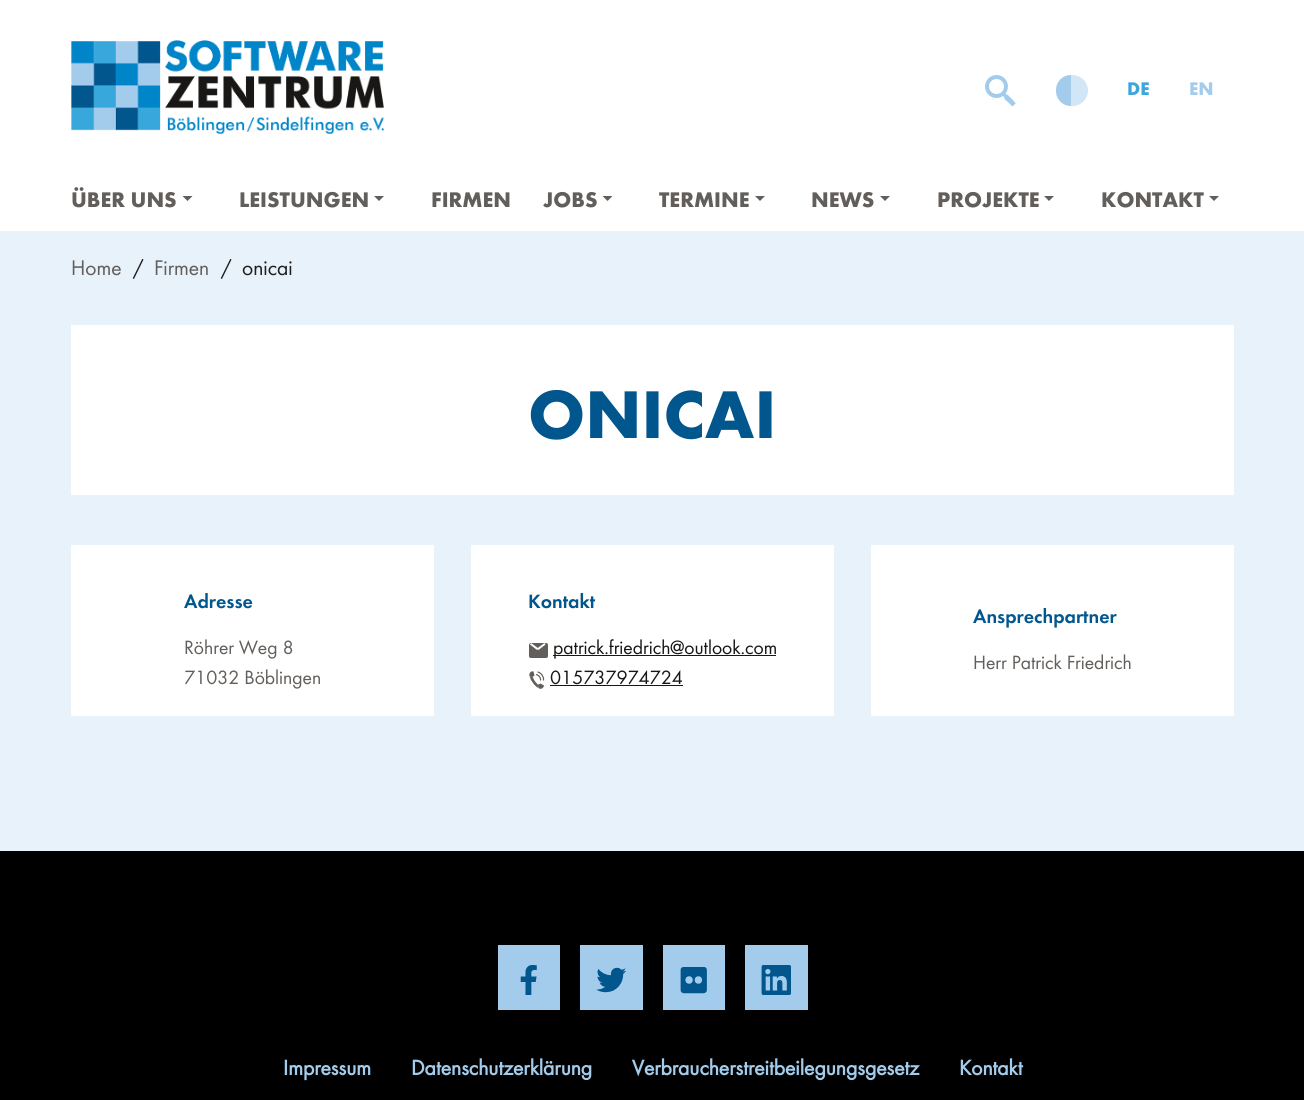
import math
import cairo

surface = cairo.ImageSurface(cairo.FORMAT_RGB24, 1304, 1100)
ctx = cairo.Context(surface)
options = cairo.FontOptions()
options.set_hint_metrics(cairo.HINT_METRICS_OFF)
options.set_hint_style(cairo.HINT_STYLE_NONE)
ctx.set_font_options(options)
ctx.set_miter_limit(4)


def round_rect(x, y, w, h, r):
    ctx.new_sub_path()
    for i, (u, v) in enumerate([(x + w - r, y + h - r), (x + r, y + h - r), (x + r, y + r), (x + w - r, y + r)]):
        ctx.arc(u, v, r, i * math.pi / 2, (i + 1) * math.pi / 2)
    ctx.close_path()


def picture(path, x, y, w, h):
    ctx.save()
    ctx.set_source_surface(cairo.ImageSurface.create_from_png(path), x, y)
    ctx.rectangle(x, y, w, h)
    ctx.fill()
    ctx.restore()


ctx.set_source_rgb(1, 1, 1)
ctx.paint()
picture("img1.png", 71, 40, 313, 94)
ctx.arc(996.5, 86.5, 9.5, 0, 2 * math.pi)
ctx.set_source_rgb(0.639, 0.8, 0.925)
ctx.set_line_width(4)
ctx.stroke()
ctx.new_path()
ctx.move_to(1003.5, 91.5)
ctx.line_to(1001, 94)
ctx.line_to(1004.5, 97.5)
ctx.line_to(1007, 95)
ctx.close_path()
ctx.fill()
ctx.new_path()
ctx.move_to(1008, 95)
ctx.line_to(1015.5, 103)
ctx.curve_to(1016, 103.5, 1015, 104, 1014.5, 104.5)
ctx.curve_to(1012, 107.5, 1012.5, 106.5, 1009.5, 103.5)
ctx.line_to(1005.5, 100)
ctx.curve_to(1004, 98, 1003.5, 98, 1005, 96.5)
ctx.curve_to(1005.5, 96, 1007, 94, 1008, 95)
ctx.close_path()
ctx.fill()
ctx.new_path()
ctx.move_to(1011.5, 99)
ctx.line_to(1014, 101.5)
ctx.line_to(1011, 104.5)
ctx.line_to(1008.5, 102)
ctx.close_path()
ctx.fill()
ctx.new_path()
ctx.move_to(1008.5, 96.5)
ctx.line_to(1011.5, 99)
ctx.line_to(1008.5, 102)
ctx.line_to(1006, 99.5)
ctx.close_path()
ctx.fill()
ctx.new_path()
ctx.move_to(1071, 75)
ctx.line_to(1071, 106)
ctx.curve_to(1062.5, 106, 1056, 99.5, 1056, 91)
ctx.line_to(1056, 90)
ctx.curve_to(1056, 81.5, 1062.5, 75, 1071, 75)
ctx.close_path()
ctx.fill()
ctx.set_source_rgb(0.82, 0.902, 0.965)
ctx.new_path()
ctx.move_to(1071, 75)
ctx.line_to(1072.5, 75)
ctx.curve_to(1081, 75, 1088, 82, 1088, 90.5)
ctx.curve_to(1088, 99, 1081, 106, 1072.5, 106)
ctx.line_to(1071, 106)
ctx.close_path()
ctx.fill()
ctx.select_font_face("Futura", cairo.FONT_SLANT_NORMAL, cairo.FONT_WEIGHT_BOLD)
ctx.set_font_size(19)
ctx.set_source_rgb(0.243, 0.651, 0.863)
ctx.move_to(1127, 95)
ctx.show_text("DE")
ctx.set_source_rgb(0.639, 0.8, 0.925)
ctx.move_to(1189, 95)
ctx.show_text("EN")
ctx.set_font_size(22)
ctx.set_source_rgb(0.384, 0.369, 0.357)
ctx.move_to(71, 207)
ctx.show_text("ÜBER UNS")
ctx.new_path()
ctx.move_to(182.5, 196)
ctx.line_to(192.5, 196)
ctx.line_to(187.5, 201)
ctx.close_path()
ctx.fill()
ctx.move_to(239, 207)
ctx.show_text("LEISTUNGEN")
ctx.new_path()
ctx.move_to(374, 196)
ctx.line_to(384, 196)
ctx.line_to(379, 201)
ctx.close_path()
ctx.fill()
ctx.move_to(431, 207)
ctx.show_text("FIRMEN")
ctx.move_to(543, 207)
ctx.show_text("JOBS")
ctx.new_path()
ctx.move_to(602.5, 196)
ctx.line_to(612.5, 196)
ctx.line_to(607.5, 201)
ctx.close_path()
ctx.fill()
ctx.move_to(659, 207)
ctx.show_text("TERMINE")
ctx.new_path()
ctx.move_to(755, 196)
ctx.line_to(765, 196)
ctx.line_to(760, 201)
ctx.close_path()
ctx.fill()
ctx.move_to(811, 207)
ctx.show_text("NEWS")
ctx.new_path()
ctx.move_to(880, 196)
ctx.line_to(890, 196)
ctx.line_to(885, 201)
ctx.close_path()
ctx.fill()
ctx.move_to(937, 207)
ctx.show_text("PROJEKTE")
ctx.new_path()
ctx.move_to(1044, 196)
ctx.line_to(1054, 196)
ctx.line_to(1049, 201)
ctx.close_path()
ctx.fill()
ctx.move_to(1101, 207)
ctx.show_text("KONTAKT")
ctx.new_path()
ctx.move_to(1209, 196)
ctx.line_to(1219, 196)
ctx.line_to(1214, 201)
ctx.close_path()
ctx.fill()
ctx.set_source_rgb(0.91, 0.949, 0.984)
ctx.rectangle(0, 231, 1304, 620)
ctx.fill()
ctx.select_font_face("Futura")
ctx.set_source_rgb(0.384, 0.369, 0.357)
ctx.move_to(71, 275)
ctx.show_text("Home")
ctx.set_source_rgb(0.122, 0.118, 0.114)
ctx.move_to(133, 275)
ctx.show_text("/")
ctx.set_source_rgb(0.384, 0.369, 0.357)
ctx.move_to(154, 275)
ctx.show_text("Firmen")
ctx.set_source_rgb(0.122, 0.118, 0.114)
ctx.move_to(221, 275)
ctx.show_text("/")
ctx.move_to(242, 275)
ctx.show_text("onicai")
ctx.set_source_rgb(1, 1, 1)
ctx.rectangle(71, 325, 1163, 170)
ctx.fill()
ctx.select_font_face("Futura", cairo.FONT_SLANT_NORMAL, cairo.FONT_WEIGHT_BOLD)
ctx.set_font_size(70)
ctx.set_source_rgb(0, 0.337, 0.553)
ctx.move_to(528, 438)
ctx.show_text("ONICAI")
ctx.set_source_rgb(1, 1, 1)
ctx.rectangle(71, 545, 363, 171)
ctx.fill()
ctx.select_font_face("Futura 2")
ctx.set_font_size(20)
ctx.set_source_rgb(0, 0.337, 0.553)
ctx.move_to(184, 608)
ctx.show_text("Adresse")
ctx.select_font_face("Futura")
ctx.set_source_rgb(0.384, 0.369, 0.357)
ctx.move_to(184, 654)
ctx.show_text("Röhrer Weg 8")
ctx.move_to(184, 684)
ctx.show_text("71032 Böblingen")
ctx.set_source_rgb(1, 1, 1)
ctx.rectangle(471, 545, 363, 171)
ctx.fill()
ctx.select_font_face("Futura 2")
ctx.set_source_rgb(0, 0.337, 0.553)
ctx.move_to(528, 608)
ctx.show_text("Kontakt")
ctx.set_source_rgb(0.384, 0.369, 0.357)
round_rect(529.5, 643.5, 18, 14, 1.5)
ctx.fill_preserve()
ctx.set_line_width(1)
ctx.stroke()
ctx.set_source_rgb(1, 1, 1)
ctx.new_path()
ctx.move_to(530, 644.5)
ctx.line_to(531, 643)
ctx.line_to(538.5, 648.5)
ctx.line_to(537, 650)
ctx.close_path()
ctx.fill()
ctx.new_path()
ctx.move_to(544.5, 643)
ctx.line_to(545.5, 644.5)
ctx.line_to(538.5, 650)
ctx.line_to(537, 648.5)
ctx.close_path()
ctx.fill()
ctx.set_source_rgb(0.094, 0.09, 0.086)
ctx.rectangle(553, 655, 223, 1)
ctx.fill()
ctx.select_font_face("Futura")
ctx.move_to(553, 654)
ctx.show_text("patrick.friedrich@outlook.com")
ctx.set_source_rgb(0.384, 0.369, 0.357)
ctx.new_path()
ctx.move_to(533, 676.5)
ctx.line_to(533, 677.5)
ctx.line_to(529.5, 676)
ctx.curve_to(529, 674, 529.5, 672.5, 531.5, 671.5)
ctx.curve_to(532, 671.5, 533, 671, 533.5, 671.5)
ctx.line_to(534.5, 675.5)
ctx.close_path()
ctx.move_to(542, 688.5)
ctx.curve_to(541, 689, 539.5, 689, 538.5, 688)
ctx.line_to(537.5, 684)
ctx.curve_to(538.5, 685, 539.5, 684, 540.5, 683.5)
ctx.line_to(544, 685.5)
ctx.curve_to(544, 687, 543, 687.5, 542, 688.5)
ctx.close_path()
ctx.fill()
ctx.new_path()
ctx.move_to(531, 680)
ctx.line_to(529.5, 676)
ctx.line_to(533, 677.5)
ctx.curve_to(533.5, 679.5, 536, 683, 537.5, 684)
ctx.line_to(538.5, 688)
ctx.curve_to(535, 686.5, 533, 683, 531, 680)
ctx.close_path()
ctx.fill()
ctx.new_path()
ctx.move_to(536, 674.5)
ctx.curve_to(539, 675, 541, 678, 540.5, 680.5)
ctx.move_to(537.5, 672)
ctx.curve_to(541, 672.5, 544, 676.5, 543.5, 680.5)
ctx.set_line_width(1.2)
ctx.stroke()
ctx.set_source_rgb(0.094, 0.09, 0.086)
ctx.move_to(550, 684)
ctx.show_text("015737974724")
ctx.rectangle(550, 685, 133, 1)
ctx.fill()
ctx.set_source_rgb(1, 1, 1)
ctx.rectangle(871, 545, 363, 171)
ctx.fill()
ctx.select_font_face("Futura 2")
ctx.set_source_rgb(0, 0.337, 0.553)
ctx.move_to(973, 623)
ctx.show_text("Ansprechpartner")
ctx.select_font_face("Futura")
ctx.set_source_rgb(0.384, 0.369, 0.357)
ctx.move_to(973, 669)
ctx.show_text("Herr Patrick Friedrich")
ctx.set_source_rgb(0, 0, 0)
ctx.rectangle(0, 851, 1304, 249)
ctx.fill()
ctx.set_source_rgb(0.639, 0.8, 0.925)
ctx.rectangle(498, 945, 62, 65)
ctx.fill()
picture("img2.png", 520, 965, 17, 30)
ctx.rectangle(580, 945, 63, 65)
ctx.fill()
picture("img3.png", 596, 967, 30, 26)
ctx.rectangle(663, 945, 62, 65)
ctx.fill()
picture("img4.png", 680, 967, 27, 27)
ctx.rectangle(745, 945, 63, 65)
ctx.fill()
picture("img5.png", 761, 965, 30, 30)
ctx.select_font_face("Futura 2", cairo.FONT_SLANT_NORMAL, cairo.FONT_WEIGHT_BOLD)
ctx.set_font_size(22)
ctx.move_to(283, 1075)
ctx.show_text("Impressum")
ctx.move_to(411, 1075)
ctx.show_text("Datenschutzerklärung")
ctx.move_to(632, 1075)
ctx.show_text("Verbraucherstreitbeilegungsgesetz")
ctx.move_to(959, 1075)
ctx.show_text("Kontakt")
surface.write_to_png("page.png")
